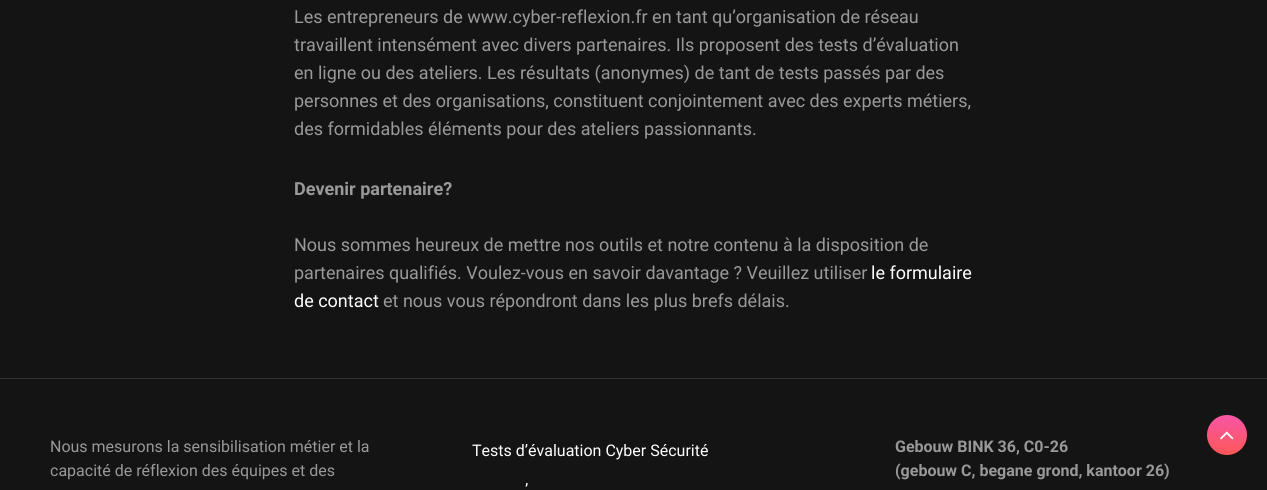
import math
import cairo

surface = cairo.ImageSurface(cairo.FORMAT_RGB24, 1267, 490)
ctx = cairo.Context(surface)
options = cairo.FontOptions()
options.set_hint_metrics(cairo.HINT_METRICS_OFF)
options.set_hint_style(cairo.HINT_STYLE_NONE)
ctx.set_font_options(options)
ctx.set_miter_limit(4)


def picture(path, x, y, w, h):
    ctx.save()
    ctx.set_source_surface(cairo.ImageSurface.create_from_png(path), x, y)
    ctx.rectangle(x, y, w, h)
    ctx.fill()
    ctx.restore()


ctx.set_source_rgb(0.082, 0.082, 0.082)
ctx.paint()
ctx.set_source_rgb(0.2, 0.2, 0.2)
ctx.rectangle(0, 378, 1267, 1)
ctx.fill()
ctx.select_font_face("Roboto")
ctx.set_font_size(18)
ctx.set_source_rgb(0.6, 0.6, 0.6)
ctx.move_to(294, 23)
ctx.show_text("Les entrepreneurs de www.cyber-reflexion.fr en tant qu’organisation de réseau")
ctx.move_to(294, 51)
ctx.show_text("travaillent intensément avec divers partenaires. Ils proposent des tests d’évaluation")
ctx.move_to(294, 79)
ctx.show_text("en ligne ou des ateliers. Les résultats (anonymes) de tant de tests passés par des")
ctx.move_to(294, 107)
ctx.show_text("personnes et des organisations, constituent conjointement avec des experts métiers,")
ctx.move_to(294, 135)
ctx.show_text("des formidables éléments pour des ateliers passionnants.")
ctx.select_font_face("Roboto", cairo.FONT_SLANT_NORMAL, cairo.FONT_WEIGHT_BOLD)
ctx.move_to(294, 195)
ctx.show_text("Devenir partenaire?")
ctx.select_font_face("Roboto")
ctx.move_to(294, 251)
ctx.show_text("Nous sommes heureux de mettre nos outils et notre contenu à la disposition de")
ctx.move_to(294, 279)
ctx.show_text("partenaires qualifiés. Voulez-vous en savoir davantage ? Veuillez utiliser")
ctx.set_source_rgb(1, 1, 1)
ctx.move_to(871, 279)
ctx.show_text("le formulaire")
ctx.move_to(294, 307)
ctx.show_text("de contact")
ctx.set_source_rgb(0.6, 0.6, 0.6)
ctx.move_to(383, 307)
ctx.show_text("et nous vous répondront dans les plus brefs délais.")
ctx.set_font_size(16)
ctx.move_to(50, 452)
ctx.show_text("Nous mesurons la sensibilisation métier et la")
ctx.move_to(50, 476)
ctx.show_text("capacité de réflexion des équipes et des")
ctx.set_source_rgb(1, 1, 1)
ctx.move_to(472, 456)
ctx.show_text("Tests d’évaluation Cyber Sécurité")
ctx.move_to(525, 495)
ctx.show_text("’")
ctx.select_font_face("Roboto", cairo.FONT_SLANT_NORMAL, cairo.FONT_WEIGHT_BOLD)
ctx.set_source_rgb(0.6, 0.6, 0.6)
ctx.move_to(895, 452)
ctx.show_text("Gebouw BINK 36, C0-26")
ctx.move_to(895, 476)
ctx.show_text("(gebouw C, begane grond, kantoor 26)")
gradient = cairo.LinearGradient(1227, 415, 1227, 455)
gradient.add_color_stop_rgba(0, 0.965, 0.337, 0.647, 1)
gradient.add_color_stop_rgba(1, 0.992, 0.341, 0.341, 1)
ctx.set_source(gradient)
ctx.new_path()
ctx.arc(1227, 435, 20, 0, 2 * math.pi)
ctx.fill()
picture("img1.png", 1220, 431, 14, 9)
surface.write_to_png("page.png")
